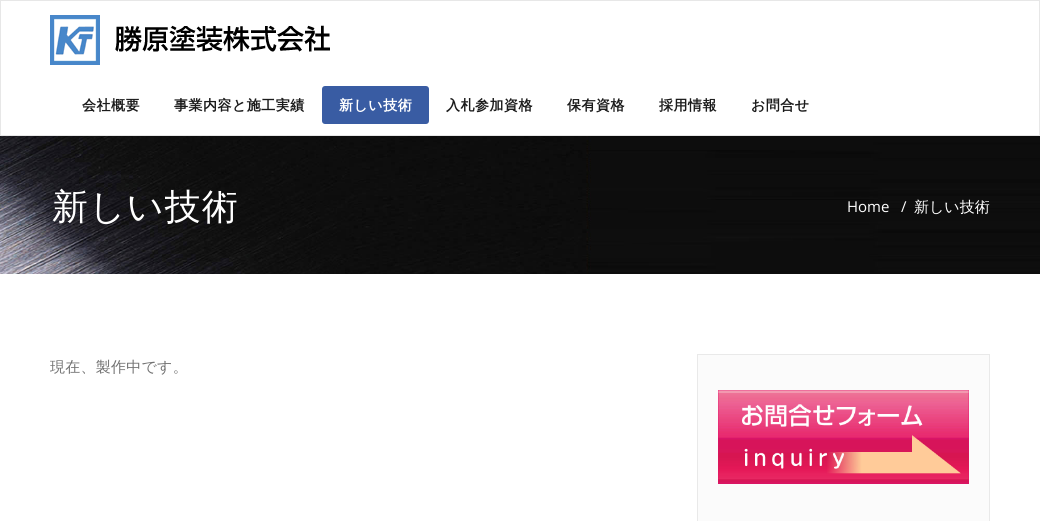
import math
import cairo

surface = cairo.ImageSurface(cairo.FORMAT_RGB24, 1040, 521)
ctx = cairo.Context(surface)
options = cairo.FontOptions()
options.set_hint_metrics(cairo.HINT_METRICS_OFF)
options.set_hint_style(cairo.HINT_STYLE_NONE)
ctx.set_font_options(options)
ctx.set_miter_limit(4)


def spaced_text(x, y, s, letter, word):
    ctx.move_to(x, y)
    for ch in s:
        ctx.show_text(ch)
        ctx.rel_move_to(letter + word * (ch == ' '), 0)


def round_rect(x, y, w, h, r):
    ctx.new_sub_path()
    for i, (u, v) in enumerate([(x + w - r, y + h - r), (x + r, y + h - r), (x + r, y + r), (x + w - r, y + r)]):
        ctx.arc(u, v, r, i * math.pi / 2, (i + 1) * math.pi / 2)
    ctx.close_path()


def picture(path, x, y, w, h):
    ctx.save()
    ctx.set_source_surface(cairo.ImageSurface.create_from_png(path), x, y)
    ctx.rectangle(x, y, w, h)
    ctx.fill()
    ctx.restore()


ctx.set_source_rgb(1, 1, 1)
ctx.paint()
ctx.rectangle(0.5, 0.5, 1039, 135)
ctx.set_source_rgb(0.906, 0.906, 0.906)
ctx.set_line_width(1)
ctx.stroke()
picture("img1.png", 50, 15, 280, 50)
ctx.select_font_face("WenQuanYi Zen Hei", cairo.FONT_SLANT_NORMAL, cairo.FONT_WEIGHT_BOLD)
ctx.set_font_size(14)
ctx.set_source_rgb(0.106, 0.106, 0.106)
spaced_text(82, 110, "会社概要", 0.5, 0)
spaced_text(174, 110, "事業内容と施工実績", 0.5, 0)
ctx.set_source_rgb(0.224, 0.361, 0.639)
round_rect(322, 86, 107, 38, 3)
ctx.fill()
ctx.set_source_rgb(1, 1, 1)
spaced_text(339, 110, "新しい技術", 0.5, 0)
ctx.set_source_rgb(0.106, 0.106, 0.106)
spaced_text(446, 110, "入札参加資格", 0.5, 0)
spaced_text(567, 110, "保有資格", 0.5, 0)
spaced_text(659, 110, "採用情報", 0.5, 0)
spaced_text(751, 110, "お問合せ", 0.5, 0)
picture("img2.png", 0, 136, 1040, 138)
ctx.select_font_face("WenQuanYi Zen Hei Medium")
ctx.set_font_size(36)
ctx.set_source_rgb(1, 1, 1)
spaced_text(52, 219, "新しい技術", 1, 0)
ctx.select_font_face("Open Sans")
ctx.set_font_size(15)
ctx.move_to(847, 212)
ctx.show_text("Home")
ctx.move_to(901, 212)
ctx.show_text("/")
ctx.select_font_face("WenQuanYi Zen Hei Medium")
ctx.move_to(914, 212)
ctx.show_text("新しい技術")
ctx.set_source_rgb(0.447, 0.447, 0.447)
spaced_text(50, 372, "現在、製作中です。", 0.25, 0)
ctx.set_source_rgb(0.984, 0.984, 0.984)
ctx.rectangle(697.5, 354.5, 292, 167)
ctx.fill_preserve()
ctx.set_source_rgb(0.914, 0.914, 0.914)
ctx.stroke()
picture("img3.png", 718, 390, 251, 94)
surface.write_to_png("page.png")
